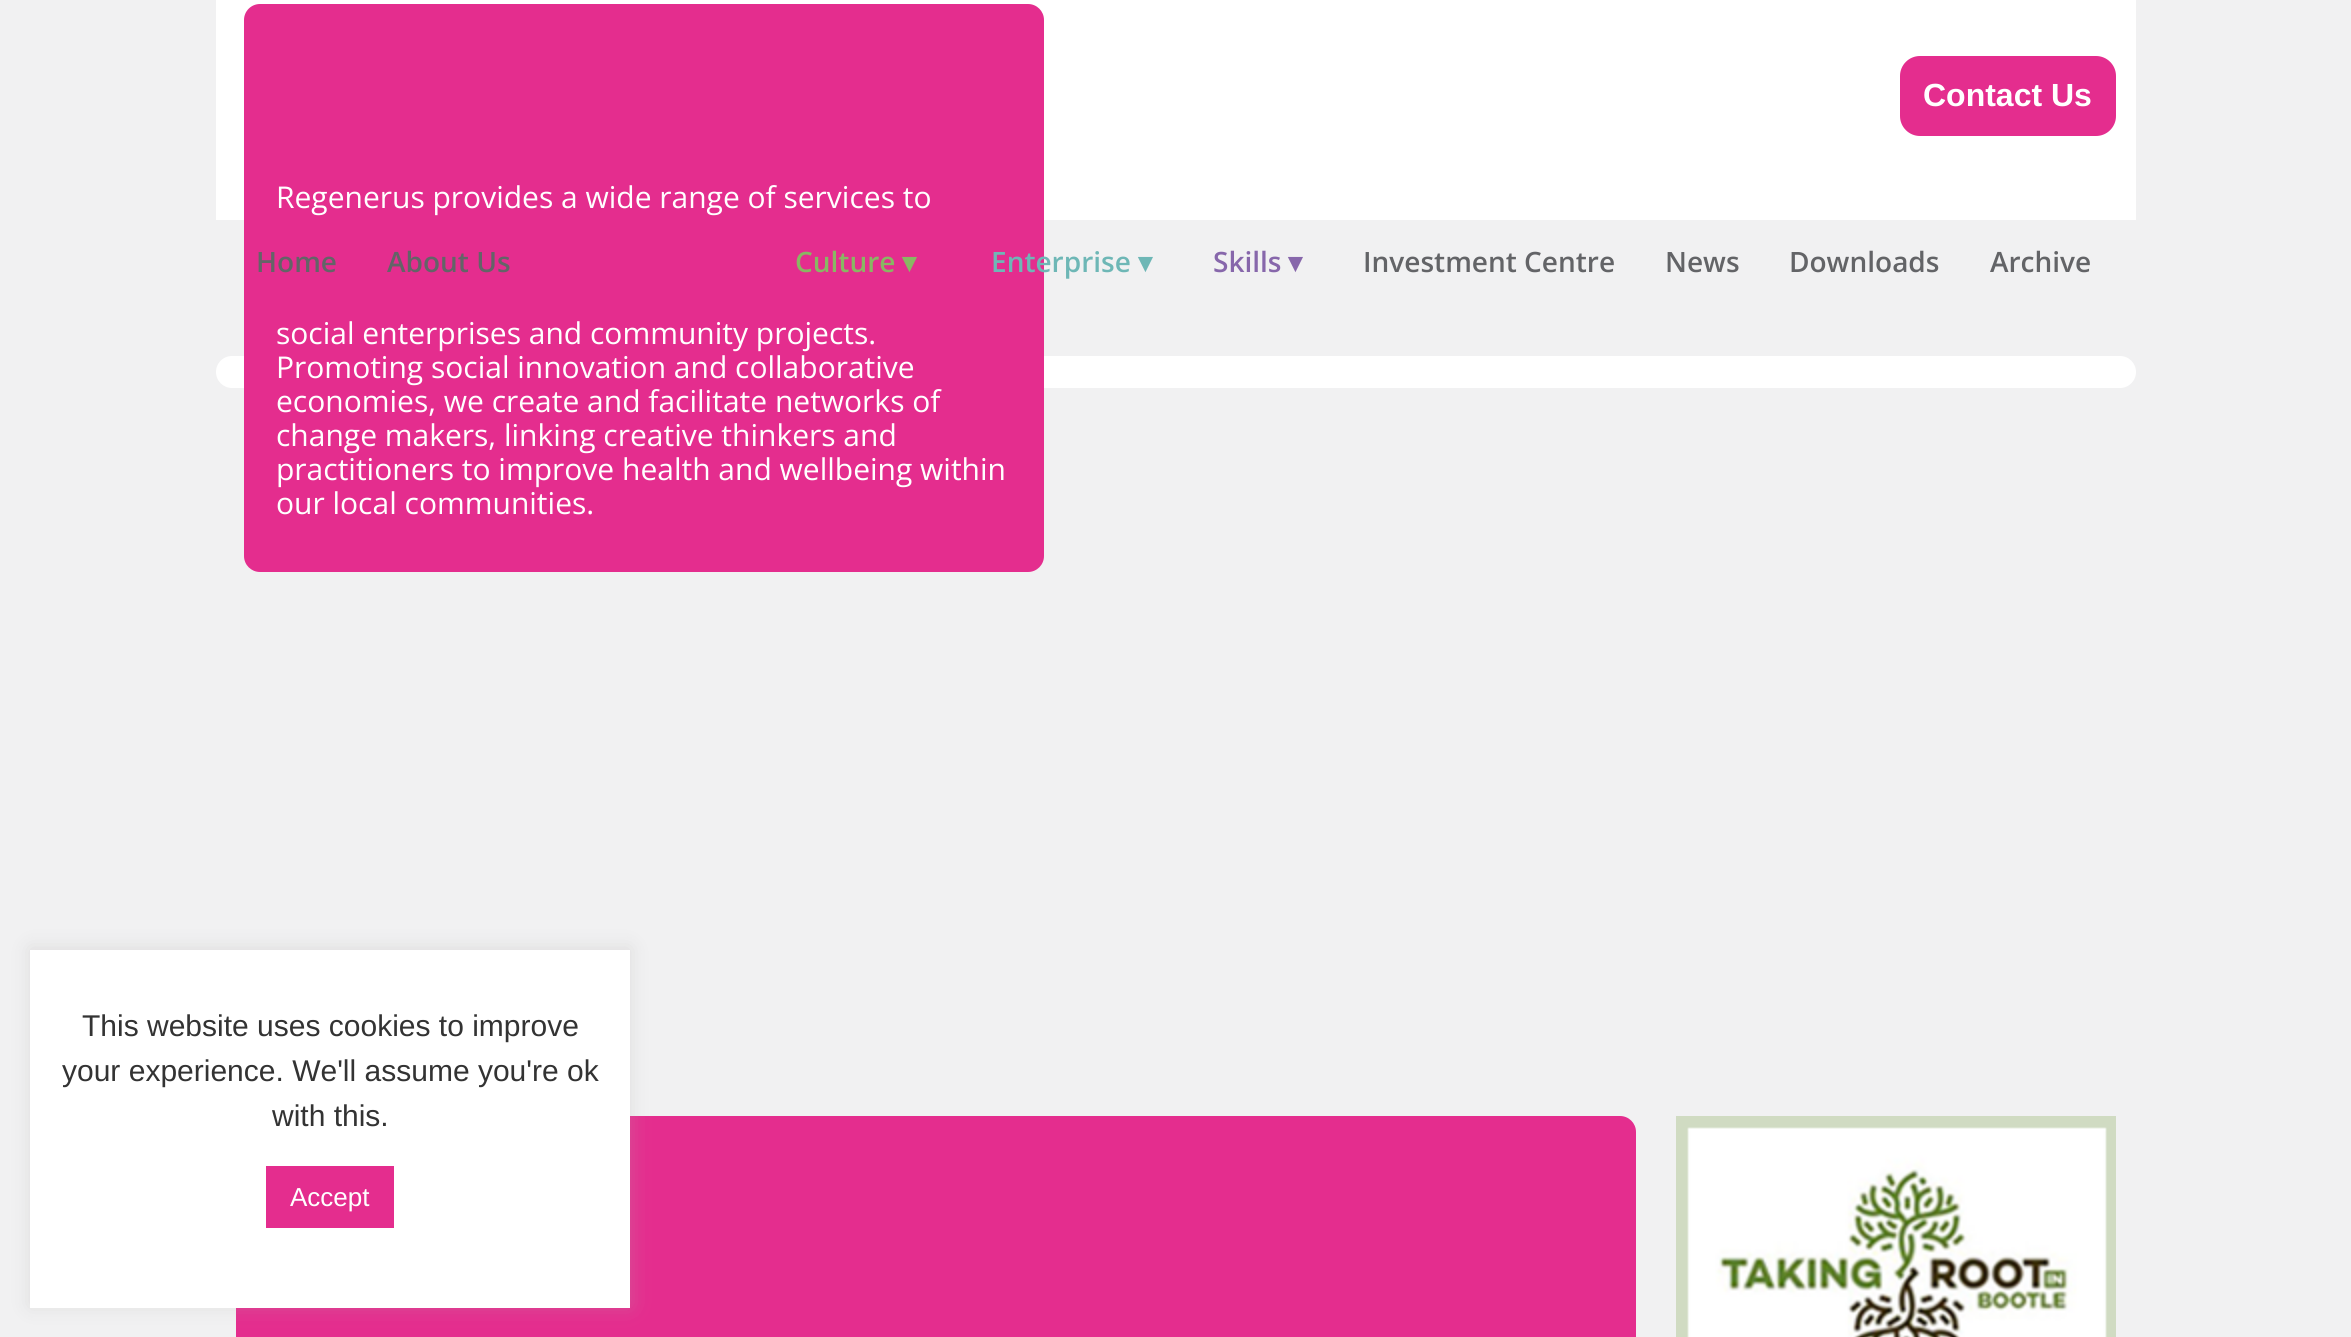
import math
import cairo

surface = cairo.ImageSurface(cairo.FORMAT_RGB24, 2351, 1337)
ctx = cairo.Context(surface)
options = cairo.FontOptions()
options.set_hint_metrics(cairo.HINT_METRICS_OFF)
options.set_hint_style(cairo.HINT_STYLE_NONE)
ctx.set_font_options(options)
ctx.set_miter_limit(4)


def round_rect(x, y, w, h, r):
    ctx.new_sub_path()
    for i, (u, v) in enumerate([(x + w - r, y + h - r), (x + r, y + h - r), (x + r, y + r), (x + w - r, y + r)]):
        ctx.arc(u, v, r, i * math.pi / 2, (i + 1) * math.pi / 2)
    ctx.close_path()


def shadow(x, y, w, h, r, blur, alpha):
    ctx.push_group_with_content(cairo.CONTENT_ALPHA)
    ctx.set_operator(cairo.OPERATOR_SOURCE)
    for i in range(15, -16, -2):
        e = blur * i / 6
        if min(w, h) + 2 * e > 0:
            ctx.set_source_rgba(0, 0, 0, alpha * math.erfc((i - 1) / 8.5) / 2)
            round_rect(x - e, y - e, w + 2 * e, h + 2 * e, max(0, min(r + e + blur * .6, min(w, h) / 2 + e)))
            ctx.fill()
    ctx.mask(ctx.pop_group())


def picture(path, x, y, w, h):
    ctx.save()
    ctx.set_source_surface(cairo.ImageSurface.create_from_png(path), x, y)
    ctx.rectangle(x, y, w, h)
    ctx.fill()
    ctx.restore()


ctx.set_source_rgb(0.945, 0.945, 0.949)
ctx.paint()
ctx.set_source_rgb(1, 1, 1)
ctx.rectangle(216, 0, 1920, 220)
ctx.fill()
ctx.set_source_rgb(0.894, 0.176, 0.557)
round_rect(1900, 56, 216, 80, 20)
ctx.fill()
ctx.select_font_face("Liberation Sans", cairo.FONT_SLANT_NORMAL, cairo.FONT_WEIGHT_BOLD)
ctx.set_font_size(32)
ctx.set_source_rgb(1, 1, 1)
ctx.move_to(1923, 106)
ctx.show_text("Contact Us")
round_rect(216, 356, 1920, 32, 16)
ctx.fill()
ctx.set_source_rgb(0.894, 0.176, 0.557)
round_rect(244, 4, 800, 568, 16)
ctx.fill()
ctx.select_font_face("Open Sans")
ctx.set_font_size(30)
ctx.set_source_rgb(1, 1, 1)
ctx.move_to(276, 208)
ctx.show_text("Regenerus provides a wide range of services to")
ctx.move_to(276, 344)
ctx.show_text("social enterprises and community projects.")
ctx.move_to(276, 378)
ctx.show_text("Promoting social innovation and collaborative")
ctx.move_to(276, 412)
ctx.show_text("economies, we create and facilitate networks of")
ctx.move_to(276, 446)
ctx.show_text("change makers, linking creative thinkers and")
ctx.move_to(276, 480)
ctx.show_text("practitioners to improve health and wellbeing within")
ctx.move_to(276, 514)
ctx.show_text("our local communities.")
ctx.select_font_face("Open Sans SemiBold")
ctx.set_font_size(28)
ctx.set_source_rgb(0.388, 0.392, 0.404)
ctx.move_to(256, 272)
ctx.show_text("Home")
ctx.move_to(387, 272)
ctx.show_text("About Us")
ctx.set_source_rgb(0.537, 0.718, 0.388)
ctx.move_to(795, 272)
ctx.show_text("Culture")
ctx.select_font_face("DejaVu Sans", cairo.FONT_SLANT_NORMAL, cairo.FONT_WEIGHT_BOLD)
ctx.move_to(902, 272)
ctx.show_text("▾")
ctx.select_font_face("Open Sans SemiBold")
ctx.set_source_rgb(0.431, 0.718, 0.714)
ctx.move_to(991, 272)
ctx.show_text("Enterprise")
ctx.select_font_face("DejaVu Sans", cairo.FONT_SLANT_NORMAL, cairo.FONT_WEIGHT_BOLD)
ctx.move_to(1138, 272)
ctx.show_text("▾")
ctx.select_font_face("Open Sans SemiBold")
ctx.set_source_rgb(0.529, 0.404, 0.671)
ctx.move_to(1213, 272)
ctx.show_text("Skills")
ctx.select_font_face("DejaVu Sans", cairo.FONT_SLANT_NORMAL, cairo.FONT_WEIGHT_BOLD)
ctx.move_to(1288, 272)
ctx.show_text("▾")
ctx.select_font_face("Open Sans SemiBold")
ctx.set_source_rgb(0.388, 0.392, 0.404)
ctx.move_to(1363, 272)
ctx.show_text("Investment Centre")
ctx.move_to(1665, 272)
ctx.show_text("News")
ctx.move_to(1789, 272)
ctx.show_text("Downloads")
ctx.move_to(1990, 272)
ctx.show_text("Archive")
ctx.set_source_rgb(0.894, 0.176, 0.557)
round_rect(236, 1116, 1400, 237, 16)
ctx.fill()
ctx.set_source_rgb(0.675, 0.671, 0.671)
shadow(30, 948, 600, 358, 0, 10, 0.3)
ctx.set_source_rgb(1, 1, 1)
ctx.rectangle(30, 950, 600, 358)
ctx.fill()
ctx.select_font_face("Liberation Sans")
ctx.set_font_size(30)
ctx.set_source_rgb(0.2, 0.2, 0.2)
ctx.move_to(82, 1036)
ctx.show_text("This website uses cookies to improve")
ctx.move_to(62, 1081)
ctx.show_text("your experience. We'll assume you're ok")
ctx.move_to(272, 1126)
ctx.show_text("with this.")
ctx.set_source_rgb(0.894, 0.176, 0.557)
ctx.rectangle(266, 1166, 128, 62)
ctx.fill()
ctx.set_font_size(26)
ctx.set_source_rgb(1, 1, 1)
ctx.move_to(290, 1206)
ctx.show_text("Accept")
picture("img1.png", 1676, 1116, 440, 221)
surface.write_to_png("page.png")
